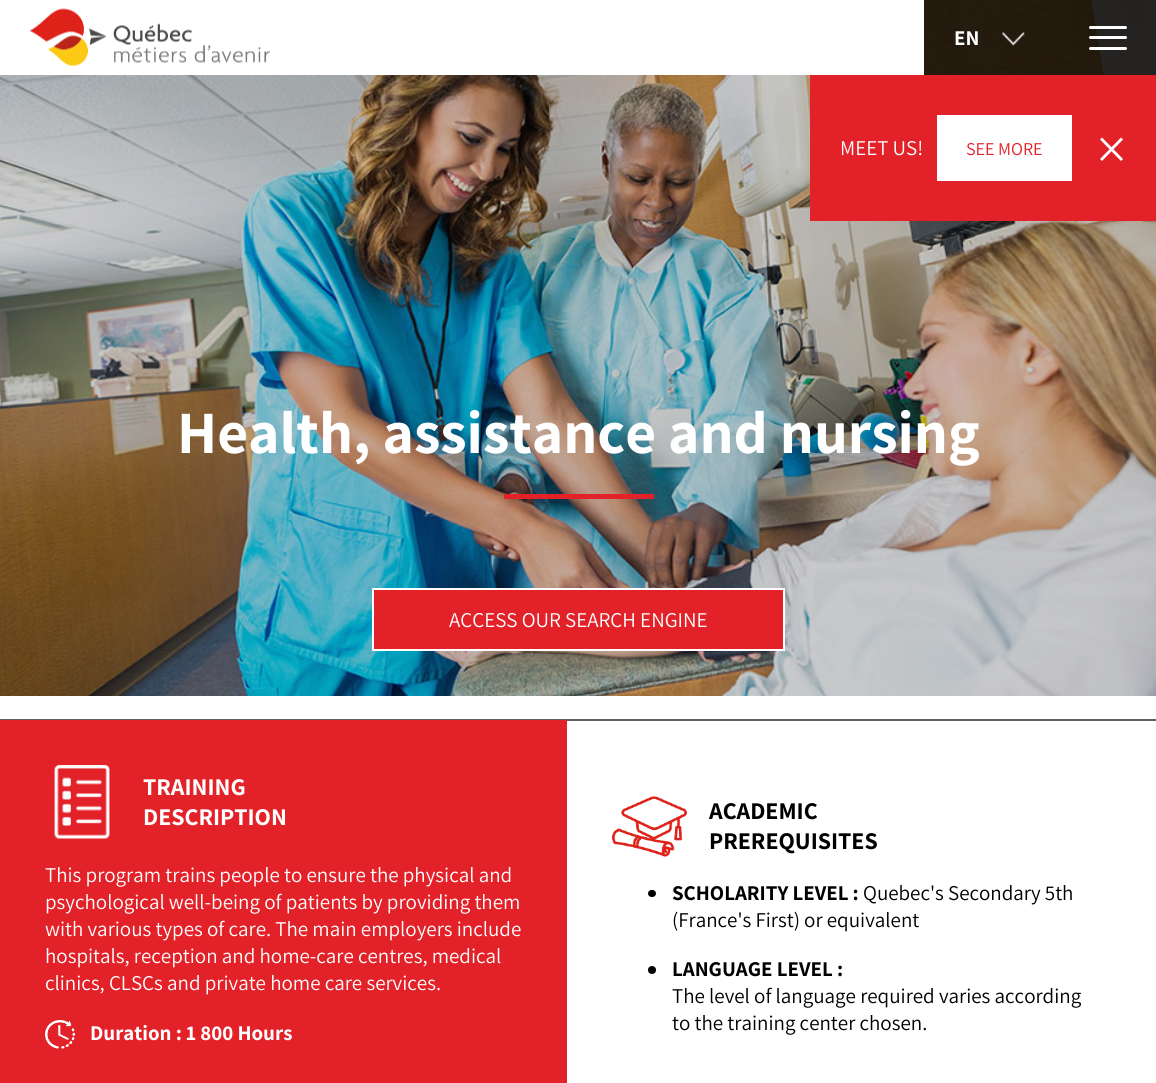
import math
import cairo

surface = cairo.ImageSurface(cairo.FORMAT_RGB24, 1156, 1083)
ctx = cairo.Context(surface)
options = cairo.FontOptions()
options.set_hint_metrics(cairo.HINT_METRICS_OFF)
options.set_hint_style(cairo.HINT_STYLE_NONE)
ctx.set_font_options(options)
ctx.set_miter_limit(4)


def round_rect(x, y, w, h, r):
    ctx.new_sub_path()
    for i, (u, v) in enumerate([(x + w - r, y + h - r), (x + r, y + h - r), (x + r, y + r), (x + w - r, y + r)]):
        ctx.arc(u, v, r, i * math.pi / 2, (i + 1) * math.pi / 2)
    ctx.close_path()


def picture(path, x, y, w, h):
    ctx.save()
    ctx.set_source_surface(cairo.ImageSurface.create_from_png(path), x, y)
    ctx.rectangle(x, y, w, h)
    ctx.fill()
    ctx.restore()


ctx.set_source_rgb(1, 1, 1)
ctx.paint()
picture("img3.png", 0, 0, 1156, 696)
ctx.set_source_rgb(1, 1, 1)
ctx.rectangle(0, 0, 924, 75)
ctx.fill()
picture("img1.png", 30, 8, 240, 59)
ctx.set_source_rgba(0, 0, 0, 0.8)
ctx.rectangle(924, 0, 135, 75)
ctx.fill()
ctx.select_font_face("Assistant", cairo.FONT_SLANT_NORMAL, cairo.FONT_WEIGHT_BOLD)
ctx.set_font_size(21)
ctx.set_source_rgb(1, 1, 1)
ctx.move_to(954, 45)
ctx.show_text("EN")
picture("img2.png", 1002, 32, 23, 14)
ctx.set_source_rgba(0, 0, 0, 0.8)
ctx.rectangle(1059, 0, 97, 75)
ctx.fill()
ctx.set_source_rgb(1, 1, 1)
round_rect(1089, 26, 38, 3, 1.5)
ctx.fill()
round_rect(1089, 36, 38, 3, 1.5)
ctx.fill()
round_rect(1089, 47, 38, 3, 1.5)
ctx.fill()
ctx.set_source_rgb(0.89, 0.129, 0.157)
ctx.rectangle(810, 75, 346, 146)
ctx.fill()
ctx.select_font_face("Assistant")
ctx.set_source_rgb(1, 1, 1)
ctx.move_to(840, 155)
ctx.show_text("MEET US!")
ctx.rectangle(937, 115, 135, 66)
ctx.fill()
ctx.set_font_size(18)
ctx.set_source_rgb(0.89, 0.129, 0.157)
ctx.move_to(966, 155)
ctx.show_text("SEE MORE")
ctx.set_source_rgb(1, 1, 1)
ctx.new_path()
ctx.move_to(1100, 159)
ctx.line_to(1121, 137.5)
ctx.line_to(1123, 139.5)
ctx.line_to(1102, 161)
ctx.close_path()
ctx.fill()
ctx.new_path()
ctx.move_to(1102, 137.5)
ctx.line_to(1123, 159)
ctx.line_to(1121, 161)
ctx.line_to(1100, 139.5)
ctx.close_path()
ctx.fill()
ctx.select_font_face("Assistant", cairo.FONT_SLANT_NORMAL, cairo.FONT_WEIGHT_BOLD)
ctx.set_font_size(60)
ctx.move_to(177, 453)
ctx.show_text("Health, assistance and nursing")
ctx.set_source_rgb(0.89, 0.129, 0.157)
ctx.rectangle(504, 494, 150, 5)
ctx.fill()
ctx.rectangle(373, 589, 411, 61)
ctx.fill_preserve()
ctx.set_source_rgb(1, 1, 1)
ctx.stroke()
ctx.select_font_face("Assistant")
ctx.set_font_size(21)
ctx.move_to(449, 627)
ctx.show_text("ACCESS OUR SEARCH ENGINE")
ctx.set_source_rgb(0.369, 0.369, 0.369)
ctx.rectangle(0, 719, 1156, 2)
ctx.fill()
ctx.set_source_rgb(0.89, 0.129, 0.157)
ctx.rectangle(0, 720, 567, 363)
ctx.fill()
picture("img4.png", 54, 765, 56, 74)
ctx.select_font_face("Assistant", cairo.FONT_SLANT_NORMAL, cairo.FONT_WEIGHT_BOLD)
ctx.set_font_size(24)
ctx.set_source_rgb(1, 1, 1)
ctx.move_to(143, 795)
ctx.show_text("TRAINING")
ctx.move_to(143, 825)
ctx.show_text("DESCRIPTION")
ctx.select_font_face("Assistant")
ctx.set_font_size(21)
ctx.move_to(45, 882)
ctx.show_text("This program trains people to ensure the physical and")
ctx.move_to(45, 909)
ctx.show_text("psychological well-being of patients by providing them")
ctx.move_to(45, 936)
ctx.show_text("with various types of care. The main employers include")
ctx.move_to(45, 963)
ctx.show_text("hospitals, reception and home-care centres, medical")
ctx.move_to(45, 990)
ctx.show_text("clinics, CLSCs and private home care services.")
picture("img5.png", 45, 1020, 30, 29)
ctx.select_font_face("Assistant", cairo.FONT_SLANT_NORMAL, cairo.FONT_WEIGHT_BOLD)
ctx.move_to(90, 1040)
ctx.show_text("Duration : 1 800 Hours")
picture("img6.png", 612, 796, 75, 61)
ctx.set_font_size(24)
ctx.set_source_rgb(0, 0, 0)
ctx.move_to(709, 819)
ctx.show_text("ACADEMIC")
ctx.move_to(709, 849)
ctx.show_text("PREREQUISITES")
round_rect(648, 890, 8, 7, 3.5)
ctx.fill()
ctx.set_font_size(21)
ctx.move_to(672, 900)
ctx.show_text("SCHOLARITY LEVEL :")
ctx.select_font_face("Assistant")
ctx.move_to(863, 900)
ctx.show_text("Quebec's Secondary 5th")
ctx.move_to(672, 927)
ctx.show_text("(France's First) or equivalent")
ctx.new_path()
ctx.arc(652, 970, 4, 0, 2 * math.pi)
ctx.fill()
ctx.select_font_face("Assistant", cairo.FONT_SLANT_NORMAL, cairo.FONT_WEIGHT_BOLD)
ctx.move_to(672, 976)
ctx.show_text("LANGUAGE LEVEL :")
ctx.select_font_face("Assistant")
ctx.move_to(672, 1003)
ctx.show_text("The level of language required varies according")
ctx.move_to(672, 1030)
ctx.show_text("to the training center chosen.")
surface.write_to_png("page.png")
